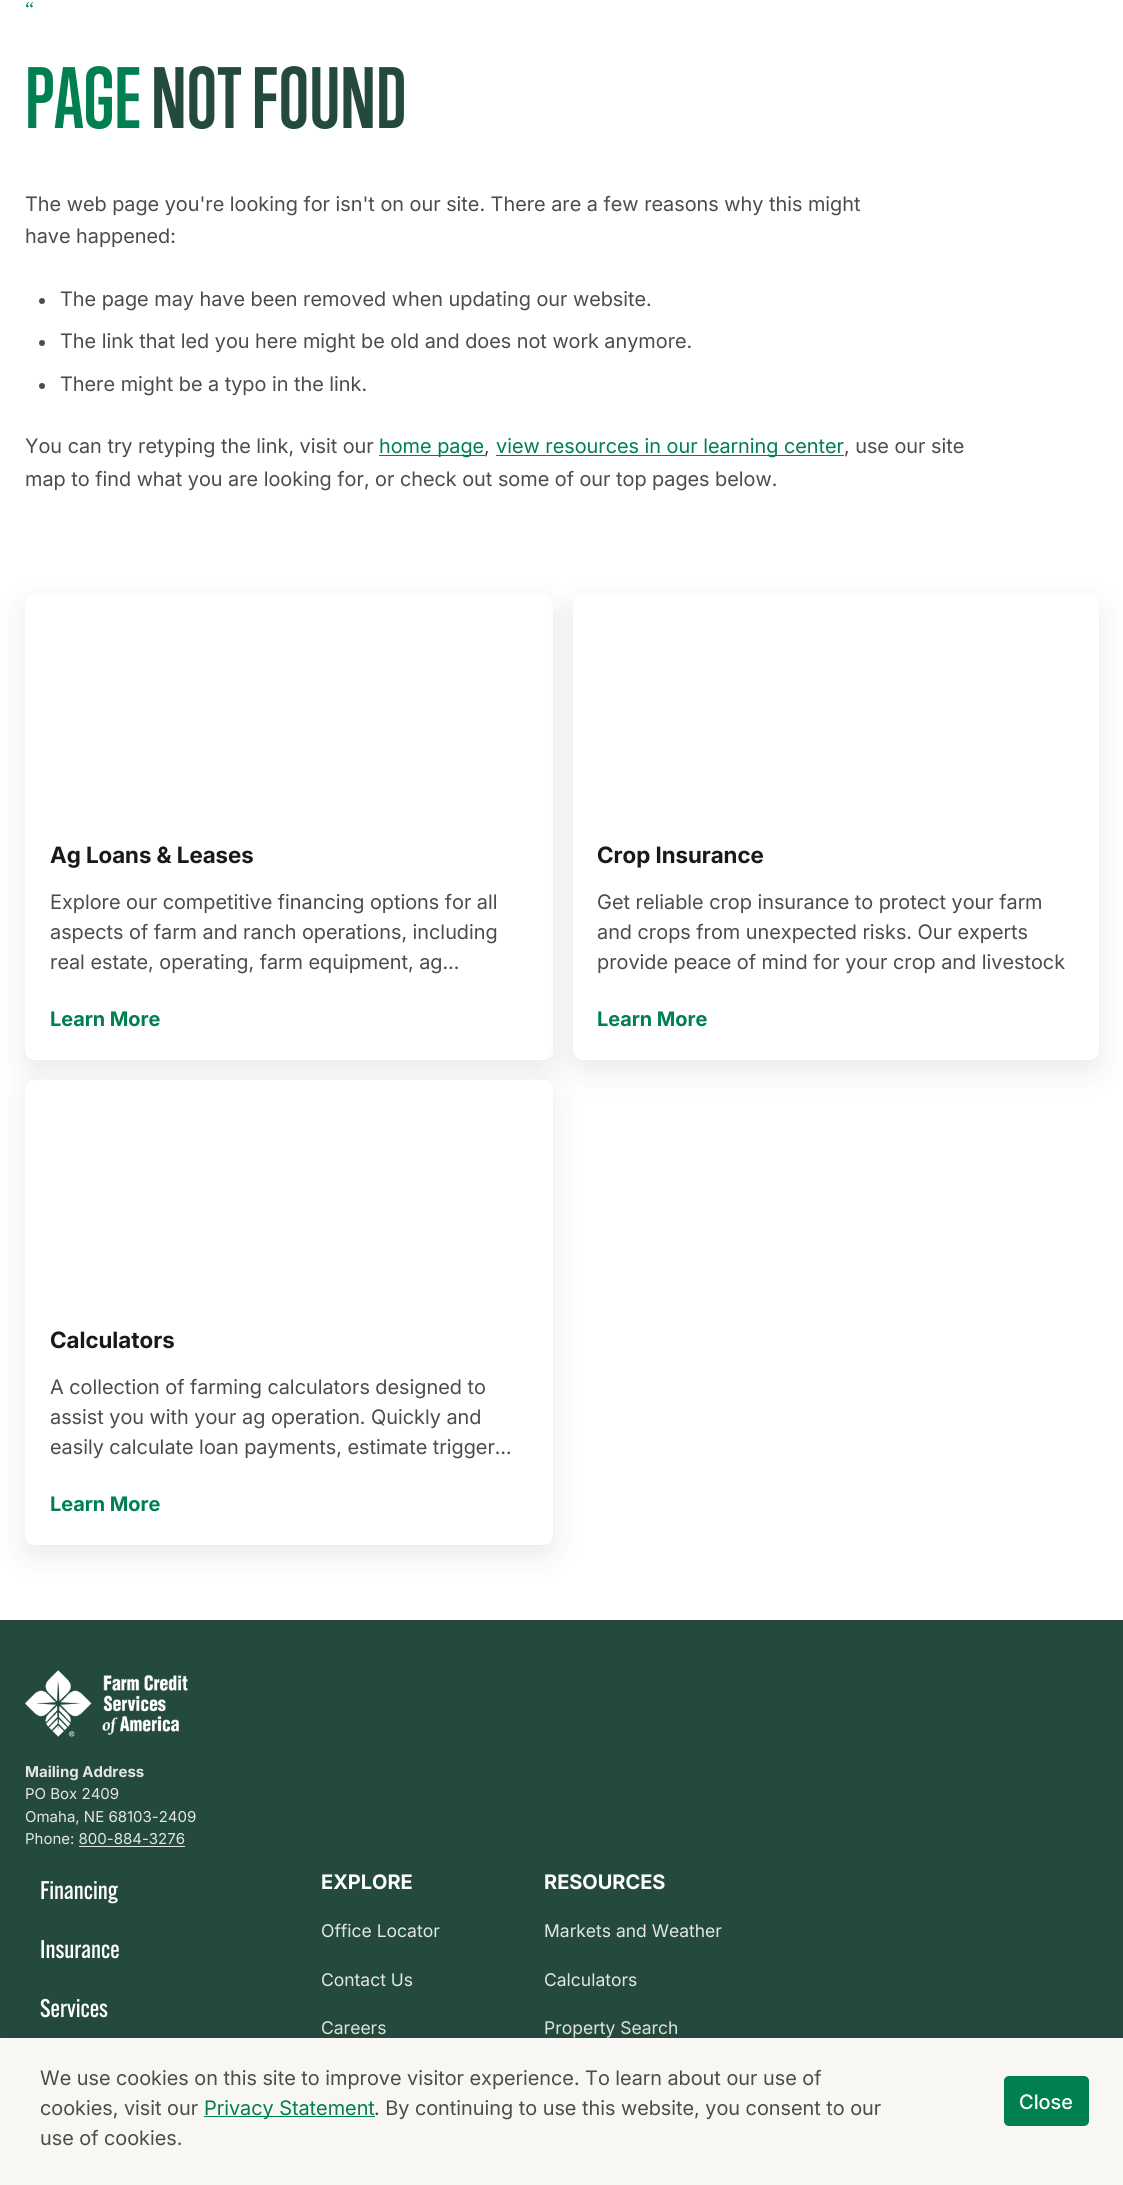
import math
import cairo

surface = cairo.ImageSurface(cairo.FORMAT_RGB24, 1123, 2185)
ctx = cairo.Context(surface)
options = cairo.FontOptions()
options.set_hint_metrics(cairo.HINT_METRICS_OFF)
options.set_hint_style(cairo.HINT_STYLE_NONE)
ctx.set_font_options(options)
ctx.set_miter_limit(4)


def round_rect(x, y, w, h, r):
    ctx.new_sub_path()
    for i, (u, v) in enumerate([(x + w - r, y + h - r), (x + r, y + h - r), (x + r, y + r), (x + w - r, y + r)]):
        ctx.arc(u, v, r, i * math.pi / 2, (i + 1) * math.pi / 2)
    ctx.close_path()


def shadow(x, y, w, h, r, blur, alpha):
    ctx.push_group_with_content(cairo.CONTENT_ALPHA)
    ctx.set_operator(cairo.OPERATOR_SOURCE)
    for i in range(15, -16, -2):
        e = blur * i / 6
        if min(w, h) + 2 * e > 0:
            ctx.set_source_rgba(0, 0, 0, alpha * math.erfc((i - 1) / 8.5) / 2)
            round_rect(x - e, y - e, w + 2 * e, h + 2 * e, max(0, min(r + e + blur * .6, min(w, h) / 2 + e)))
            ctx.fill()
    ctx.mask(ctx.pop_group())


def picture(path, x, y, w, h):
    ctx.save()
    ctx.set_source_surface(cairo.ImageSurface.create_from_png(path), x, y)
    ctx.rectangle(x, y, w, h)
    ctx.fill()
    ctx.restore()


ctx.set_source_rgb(1, 1, 1)
ctx.paint()
ctx.select_font_face("Liberation Serif")
ctx.set_font_size(20)
ctx.set_source_rgb(0, 0.502, 0.314)
ctx.save()
ctx.translate(34, -6)
ctx.rotate(180 * math.pi / 180)
ctx.move_to(0, 0)
ctx.show_text("”")
ctx.restore()
ctx.select_font_face("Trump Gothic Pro", cairo.FONT_SLANT_NORMAL, cairo.FONT_WEIGHT_BOLD)
ctx.set_font_size(79.5)
ctx.move_to(25, 128)
ctx.show_text("PAGE")
ctx.set_source_rgb(0.141, 0.29, 0.243)
ctx.move_to(151, 128)
ctx.show_text("NOT FOUND")
ctx.select_font_face("Inter")
ctx.set_font_size(20)
ctx.set_source_rgb(0.298, 0.298, 0.298)
ctx.move_to(25, 211)
ctx.show_text("The web page you're looking for isn't on our site. There are a few reasons why this might")
ctx.move_to(25, 243)
ctx.show_text("have happened:")
ctx.new_path()
ctx.arc(42, 301, 3, 0, 2 * math.pi)
ctx.fill()
ctx.move_to(60, 306)
ctx.show_text("The page may have been removed when updating our website.")
ctx.new_path()
ctx.arc(42, 343, 3, 0, 2 * math.pi)
ctx.fill()
ctx.move_to(60, 348)
ctx.show_text("The link that led you here might be old and does not work anymore.")
ctx.new_path()
ctx.arc(42, 386, 3, 0, 2 * math.pi)
ctx.fill()
ctx.move_to(60, 391)
ctx.show_text("There might be a typo in the link.")
ctx.move_to(25, 453)
ctx.show_text("You can try retyping the link, visit our")
ctx.set_source_rgb(0, 0.502, 0.314)
ctx.rectangle(379, 455, 106, 1)
ctx.fill()
ctx.move_to(379, 453)
ctx.show_text("home page")
ctx.set_source_rgb(0.298, 0.298, 0.298)
ctx.move_to(484, 453)
ctx.show_text(",")
ctx.set_source_rgb(0, 0.502, 0.314)
ctx.rectangle(496, 455, 348, 1)
ctx.fill()
ctx.move_to(496, 453)
ctx.show_text("view resources in our learning center")
ctx.set_source_rgb(0.298, 0.298, 0.298)
ctx.move_to(844, 453)
ctx.show_text(", use our site")
ctx.move_to(25, 486)
ctx.show_text("map to find what you are looking for, or check out some of our top pages below.")
ctx.set_source_rgb(0.102, 0.102, 0.102)
shadow(25, 605, 528, 465, 10, 15, 0.1)
ctx.set_source_rgb(1, 1, 1)
round_rect(25, 595, 528, 465, 10)
ctx.fill()
ctx.select_font_face("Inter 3", cairo.FONT_SLANT_NORMAL, cairo.FONT_WEIGHT_BOLD)
ctx.set_font_size(22.5)
ctx.set_source_rgb(0.098, 0.098, 0.098)
ctx.move_to(50, 863)
ctx.show_text("Ag Loans & Leases")
ctx.select_font_face("Inter")
ctx.set_font_size(20)
ctx.set_source_rgb(0.298, 0.298, 0.298)
ctx.move_to(50, 909)
ctx.show_text("Explore our competitive financing options for all")
ctx.move_to(50, 939)
ctx.show_text("aspects of farm and ranch operations, including")
ctx.move_to(50, 969)
ctx.show_text("real estate, operating, farm equipment, ag…")
ctx.select_font_face("Inter", cairo.FONT_SLANT_NORMAL, cairo.FONT_WEIGHT_BOLD)
ctx.set_source_rgb(0, 0.502, 0.314)
ctx.move_to(50, 1026)
ctx.show_text("Learn More")
ctx.set_source_rgb(0.102, 0.102, 0.102)
shadow(573, 605, 526, 465, 10, 15, 0.1)
ctx.set_source_rgb(1, 1, 1)
round_rect(573, 595, 526, 465, 10)
ctx.fill()
ctx.select_font_face("Inter 3", cairo.FONT_SLANT_NORMAL, cairo.FONT_WEIGHT_BOLD)
ctx.set_font_size(22.5)
ctx.set_source_rgb(0.098, 0.098, 0.098)
ctx.move_to(597, 863)
ctx.show_text("Crop Insurance")
ctx.select_font_face("Inter")
ctx.set_font_size(20)
ctx.set_source_rgb(0.298, 0.298, 0.298)
ctx.move_to(597, 909)
ctx.show_text("Get reliable crop insurance to protect your farm")
ctx.move_to(597, 939)
ctx.show_text("and crops from unexpected risks. Our experts")
ctx.move_to(597, 969)
ctx.show_text("provide peace of mind for your crop and livestock")
ctx.select_font_face("Inter", cairo.FONT_SLANT_NORMAL, cairo.FONT_WEIGHT_BOLD)
ctx.set_source_rgb(0, 0.502, 0.314)
ctx.move_to(597, 1026)
ctx.show_text("Learn More")
ctx.set_source_rgb(0.102, 0.102, 0.102)
shadow(25, 1090, 528, 465, 10, 15, 0.1)
ctx.set_source_rgb(1, 1, 1)
round_rect(25, 1080, 528, 465, 10)
ctx.fill()
ctx.select_font_face("Inter 3", cairo.FONT_SLANT_NORMAL, cairo.FONT_WEIGHT_BOLD)
ctx.set_font_size(22.5)
ctx.set_source_rgb(0.098, 0.098, 0.098)
ctx.move_to(50, 1348)
ctx.show_text("Calculators")
ctx.select_font_face("Inter")
ctx.set_font_size(20)
ctx.set_source_rgb(0.298, 0.298, 0.298)
ctx.move_to(50, 1394)
ctx.show_text("A collection of farming calculators designed to")
ctx.move_to(50, 1424)
ctx.show_text("assist you with your ag operation. Quickly and")
ctx.move_to(50, 1454)
ctx.show_text("easily calculate loan payments, estimate trigger…")
ctx.select_font_face("Inter", cairo.FONT_SLANT_NORMAL, cairo.FONT_WEIGHT_BOLD)
ctx.set_source_rgb(0, 0.502, 0.314)
ctx.move_to(50, 1511)
ctx.show_text("Learn More")
ctx.set_source_rgb(0.141, 0.29, 0.243)
ctx.rectangle(0, 1620, 1123, 418)
ctx.fill()
picture("img1.png", 25, 1670, 163, 67)
ctx.select_font_face("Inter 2", cairo.FONT_SLANT_NORMAL, cairo.FONT_WEIGHT_BOLD)
ctx.set_font_size(15)
ctx.set_source_rgb(0.898, 0.898, 0.898)
ctx.move_to(25, 1777)
ctx.show_text("Mailing Address")
ctx.select_font_face("Inter 2")
ctx.move_to(25, 1799)
ctx.show_text("PO Box 2409")
ctx.move_to(25, 1822)
ctx.show_text("Omaha, NE 68103-2409")
ctx.move_to(25, 1844)
ctx.show_text("Phone: 800-884-3276")
ctx.rectangle(79, 1846, 106, 1)
ctx.fill()
ctx.select_font_face("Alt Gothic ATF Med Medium")
ctx.set_font_size(25)
ctx.set_source_rgb(1, 1, 1)
ctx.move_to(40, 1899)
ctx.show_text("Financing")
ctx.move_to(40, 1958)
ctx.show_text("Insurance")
ctx.move_to(40, 2017)
ctx.show_text("Services")
ctx.select_font_face("Inter", cairo.FONT_SLANT_NORMAL, cairo.FONT_WEIGHT_BOLD)
ctx.set_font_size(20)
ctx.move_to(321, 1889)
ctx.show_text("EXPLORE")
ctx.select_font_face("Inter 2")
ctx.set_font_size(17.5)
ctx.set_source_rgb(0.898, 0.898, 0.898)
ctx.move_to(321, 1937)
ctx.show_text("Office Locator")
ctx.move_to(321, 1986)
ctx.show_text("Contact Us")
ctx.move_to(321, 2034)
ctx.show_text("Careers")
ctx.select_font_face("Inter", cairo.FONT_SLANT_NORMAL, cairo.FONT_WEIGHT_BOLD)
ctx.set_font_size(20)
ctx.set_source_rgb(1, 1, 1)
ctx.move_to(544, 1889)
ctx.show_text("RESOURCES")
ctx.select_font_face("Inter 2")
ctx.set_font_size(17.5)
ctx.set_source_rgb(0.898, 0.898, 0.898)
ctx.move_to(544, 1937)
ctx.show_text("Markets and Weather")
ctx.move_to(544, 1986)
ctx.show_text("Calculators")
ctx.move_to(544, 2034)
ctx.show_text("Property Search")
ctx.set_source_rgb(0.102, 0.102, 0.102)
shadow(10, 2038, 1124, 147, 0, 15, 0.1)
ctx.set_source_rgb(0.969, 0.965, 0.953)
ctx.rectangle(0, 2038, 1123, 147)
ctx.fill()
ctx.select_font_face("Inter")
ctx.set_font_size(20)
ctx.set_source_rgb(0.298, 0.298, 0.298)
ctx.move_to(40, 2085)
ctx.show_text("We use cookies on this site to improve visitor experience. To learn about our use of")
ctx.move_to(40, 2115)
ctx.show_text("cookies, visit our")
ctx.set_source_rgb(0, 0.502, 0.314)
ctx.rectangle(204, 2116, 171, 1)
ctx.fill()
ctx.move_to(204, 2115)
ctx.show_text("Privacy Statement")
ctx.set_source_rgb(0.298, 0.298, 0.298)
ctx.move_to(374, 2115)
ctx.show_text(". By continuing to use this website, you consent to our")
ctx.move_to(40, 2145)
ctx.show_text("use of cookies.")
ctx.set_source_rgb(0, 0.502, 0.314)
round_rect(1004, 2076, 85, 50, 5)
ctx.fill()
ctx.select_font_face("Inter Medium")
ctx.set_source_rgb(1, 1, 1)
ctx.move_to(1019, 2109)
ctx.show_text("Close")
surface.write_to_png("page.png")
